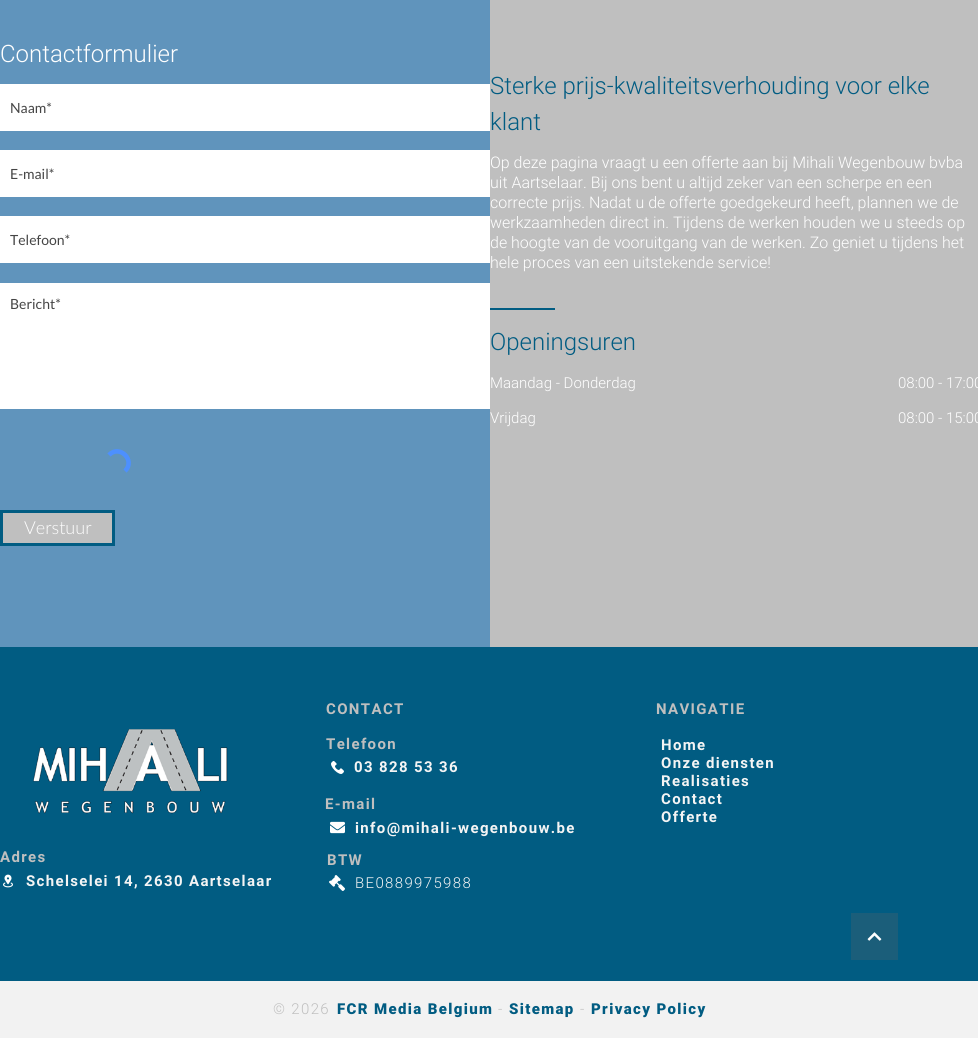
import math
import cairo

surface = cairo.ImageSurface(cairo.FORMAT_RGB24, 978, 1040)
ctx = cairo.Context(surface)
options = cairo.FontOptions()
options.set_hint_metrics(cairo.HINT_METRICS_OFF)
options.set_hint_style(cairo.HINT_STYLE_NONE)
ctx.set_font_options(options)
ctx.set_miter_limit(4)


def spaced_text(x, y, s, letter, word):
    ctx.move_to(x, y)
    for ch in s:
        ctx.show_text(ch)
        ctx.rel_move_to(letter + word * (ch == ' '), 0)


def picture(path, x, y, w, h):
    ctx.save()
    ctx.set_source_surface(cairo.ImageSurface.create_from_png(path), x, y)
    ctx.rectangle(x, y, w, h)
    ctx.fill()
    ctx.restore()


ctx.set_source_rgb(1, 1, 1)
ctx.paint()
ctx.set_source_rgb(0.376, 0.58, 0.737)
ctx.rectangle(0, 0, 490, 647)
ctx.fill()
ctx.select_font_face("Roboto Light")
ctx.set_font_size(24)
ctx.set_source_rgb(1, 1, 1)
ctx.move_to(0, 62)
ctx.show_text("Contactformulier")
ctx.rectangle(0, 84, 490, 47)
ctx.fill()
ctx.select_font_face("Lato")
ctx.set_font_size(14)
ctx.set_source_rgb(0.271, 0.271, 0.271)
ctx.move_to(10, 113)
ctx.show_text("Naam*")
ctx.set_source_rgb(1, 1, 1)
ctx.rectangle(0, 150, 490, 47)
ctx.fill()
ctx.set_source_rgb(0.271, 0.271, 0.271)
ctx.move_to(10, 179)
ctx.show_text("E-mail*")
ctx.set_source_rgb(1, 1, 1)
ctx.rectangle(0, 216, 490, 47)
ctx.fill()
ctx.set_source_rgb(0.271, 0.271, 0.271)
ctx.move_to(10, 245)
ctx.show_text("Telefoon*")
ctx.set_source_rgb(1, 1, 1)
ctx.rectangle(0, 283, 490, 126)
ctx.fill()
ctx.set_source_rgb(0.271, 0.271, 0.271)
ctx.move_to(10, 309)
ctx.show_text("Bericht*")
ctx.new_path()
ctx.move_to(109, 455)
ctx.curve_to(119.5, 444, 136, 460.5, 125, 471)
ctx.set_source_rgb(0.302, 0.565, 0.996)
ctx.set_line_width(4.6)
ctx.stroke()
ctx.set_source_rgb(0.749, 0.749, 0.749)
ctx.rectangle(1.5, 511.5, 112, 33)
ctx.fill_preserve()
ctx.set_source_rgb(0.004, 0.361, 0.51)
ctx.set_line_width(3)
ctx.stroke()
ctx.select_font_face("Lato Light")
ctx.set_font_size(18)
ctx.set_source_rgb(1, 1, 1)
ctx.move_to(24, 534)
ctx.show_text("Verstuur")
ctx.set_source_rgb(0.749, 0.749, 0.749)
ctx.rectangle(490, 0, 488, 647)
ctx.fill()
ctx.select_font_face("Roboto Light")
ctx.set_font_size(24)
ctx.set_source_rgb(0.004, 0.361, 0.51)
ctx.move_to(490, 94)
ctx.show_text("Sterke prijs-kwaliteitsverhouding voor elke")
ctx.move_to(490, 130)
ctx.show_text("klant")
ctx.select_font_face("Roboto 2 Light")
ctx.set_font_size(16)
ctx.set_source_rgb(1, 1, 1)
ctx.move_to(490, 168)
ctx.show_text("Op deze pagina vraagt u een offerte aan bij Mihali Wegenbouw bvba")
ctx.move_to(490, 188)
ctx.show_text("uit Aartselaar. Bij ons bent u altijd zeker van een scherpe en een")
ctx.move_to(490, 208)
ctx.show_text("correcte prijs. Nadat u de offerte goedgekeurd heeft, plannen we de")
ctx.move_to(490, 228)
ctx.show_text("werkzaamheden direct in. Tijdens de werken houden we u steeds op")
ctx.move_to(490, 248)
ctx.show_text("de hoogte van de vooruitgang van de werken. Zo geniet u tijdens het")
ctx.move_to(490, 268)
ctx.show_text("hele proces van een uitstekende service!")
ctx.set_source_rgb(0.004, 0.361, 0.51)
ctx.rectangle(490, 308, 65, 2)
ctx.fill()
ctx.select_font_face("Roboto Light")
ctx.set_font_size(24)
ctx.move_to(490, 350)
ctx.show_text("Openingsuren")
ctx.set_font_size(15)
ctx.set_source_rgb(1, 1, 1)
ctx.move_to(490, 388)
ctx.show_text("Maandag - Donderdag")
ctx.move_to(898, 388)
ctx.show_text("08:00 - 17:00")
ctx.move_to(490, 423)
ctx.show_text("Vrijdag")
ctx.move_to(898, 423)
ctx.show_text("08:00 - 15:00")
ctx.set_source_rgb(0.004, 0.361, 0.51)
ctx.rectangle(0, 647, 978, 334)
ctx.fill()
ctx.select_font_face("Roboto", cairo.FONT_SLANT_NORMAL, cairo.FONT_WEIGHT_BOLD)
ctx.set_source_rgb(0.749, 0.749, 0.749)
spaced_text(326, 714, "CONTACT", 1.35, 0)
spaced_text(326, 749, "Telefoon", 1.35, 0)
picture("img1.png", 331, 761, 13, 13)
ctx.set_source_rgb(0.957, 0.957, 0.957)
spaced_text(354, 772, "03 828 53 36", 1.35, 0)
ctx.set_source_rgb(0.749, 0.749, 0.749)
spaced_text(325, 809, "E-mail", 1.35, 0)
picture("img2.png", 330, 821, 15, 13)
ctx.set_source_rgb(0.957, 0.957, 0.957)
spaced_text(355, 833, "info@mihali-wegenbouw.be", 1.35, 0)
ctx.set_source_rgb(0.749, 0.749, 0.749)
spaced_text(327, 865, "BTW", 1.35, 0)
picture("img3.png", 329, 875, 16, 16)
ctx.select_font_face("Roboto Light")
ctx.set_source_rgb(0.957, 0.957, 0.957)
spaced_text(355, 888, "BE0889975988", 1.35, 0)
ctx.select_font_face("Roboto", cairo.FONT_SLANT_NORMAL, cairo.FONT_WEIGHT_BOLD)
spaced_text(661, 750, "Home", 1.35, 0)
spaced_text(661, 768, "Onze diensten", 1.35, 0)
spaced_text(661, 786, "Realisaties", 1.35, 0)
spaced_text(661, 804, "Contact", 1.35, 0)
spaced_text(661, 822, "Offerte", 1.35, 0)
picture("img4.png", 33, 729, 195, 85)
ctx.set_source_rgb(0.749, 0.749, 0.749)
spaced_text(0, 862, "Adres", 1.35, 0)
picture("img5.png", 3, 874, 10, 14)
ctx.set_source_rgb(0.957, 0.957, 0.957)
spaced_text(26, 886, "Schelselei 14, 2630 Aartselaar", 1.35, 0)
ctx.set_source_rgb(0.749, 0.749, 0.749)
spaced_text(656, 714, "NAVIGATIE", 1.35, 0)
ctx.set_source_rgb(0.949, 0.949, 0.949)
ctx.rectangle(0, 981, 978, 57)
ctx.fill()
ctx.select_font_face("Roboto Light")
ctx.set_source_rgb(0.749, 0.749, 0.749)
spaced_text(273, 1014, "© 2026", 1.35, 0)
ctx.select_font_face("Roboto Black")
ctx.set_source_rgb(0.004, 0.361, 0.51)
spaced_text(337, 1014, "FCR Media Belgium", 1.35, 0)
ctx.select_font_face("Roboto 2 Light")
ctx.set_source_rgb(0.749, 0.749, 0.749)
spaced_text(498, 1014, "-", 1.35, 0)
ctx.select_font_face("Roboto Black")
ctx.set_source_rgb(0.004, 0.361, 0.51)
spaced_text(509, 1014, "Sitemap", 1.35, 0)
ctx.select_font_face("Roboto Light")
ctx.set_source_rgb(0.749, 0.749, 0.749)
spaced_text(580, 1014, "-", 1.35, 0)
ctx.select_font_face("Roboto Black")
ctx.set_source_rgb(0.004, 0.361, 0.51)
spaced_text(591, 1014, "Privacy Policy", 1.35, 0)
ctx.set_source_rgb(0.106, 0.369, 0.478)
ctx.rectangle(851, 913, 47, 47)
ctx.fill()
picture("img6.png", 867, 932, 15, 9)
surface.write_to_png("page.png")
